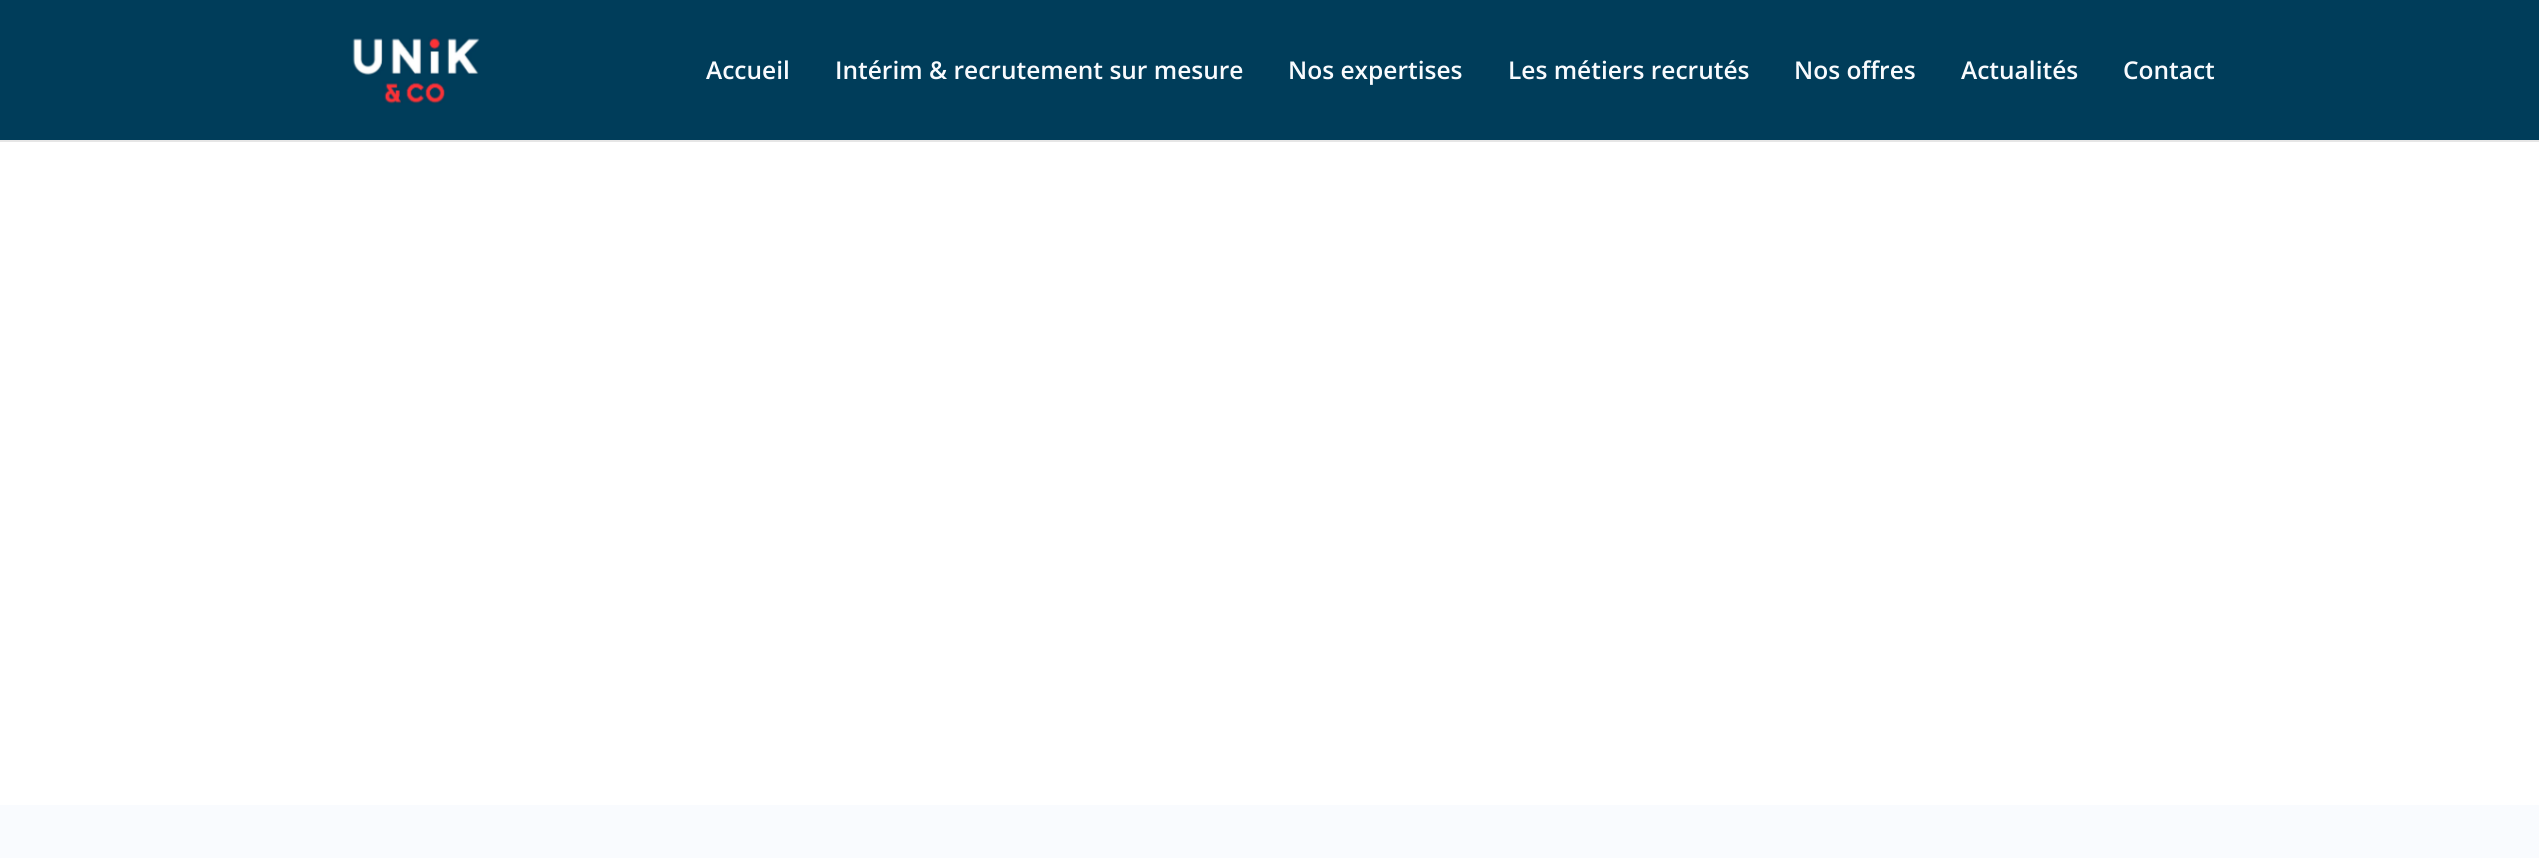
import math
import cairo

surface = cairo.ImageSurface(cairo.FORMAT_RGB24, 2539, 858)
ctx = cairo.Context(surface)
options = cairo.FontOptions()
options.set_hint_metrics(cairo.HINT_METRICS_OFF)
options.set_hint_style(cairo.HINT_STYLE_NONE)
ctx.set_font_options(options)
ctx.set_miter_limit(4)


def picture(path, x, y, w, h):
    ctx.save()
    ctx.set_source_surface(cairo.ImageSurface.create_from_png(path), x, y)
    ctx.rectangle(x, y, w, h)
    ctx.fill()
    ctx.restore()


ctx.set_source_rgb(1, 1, 1)
ctx.paint()
ctx.set_source_rgb(0.902, 0.902, 0.902)
ctx.rectangle(0, 140, 2539, 2)
ctx.fill()
ctx.set_source_rgb(0, 0.239, 0.353)
ctx.rectangle(0, 0, 2539, 140)
ctx.fill()
picture("img1.png", 352, 37, 128, 67)
ctx.select_font_face("Open Sans SemiBold")
ctx.set_font_size(24.5)
ctx.set_source_rgb(0.973, 0.984, 0.996)
ctx.move_to(706, 79)
ctx.show_text("Accueil")
ctx.move_to(835, 79)
ctx.show_text("Intérim & recrutement sur mesure")
ctx.move_to(1288, 79)
ctx.show_text("Nos expertises")
ctx.move_to(1508, 79)
ctx.show_text("Les métiers recrutés")
ctx.move_to(1794, 79)
ctx.show_text("Nos offres")
ctx.move_to(1961, 79)
ctx.show_text("Actualités")
ctx.move_to(2123, 79)
ctx.show_text("Contact")
ctx.rectangle(0, 805, 2539, 53)
ctx.fill()
surface.write_to_png("page.png")
